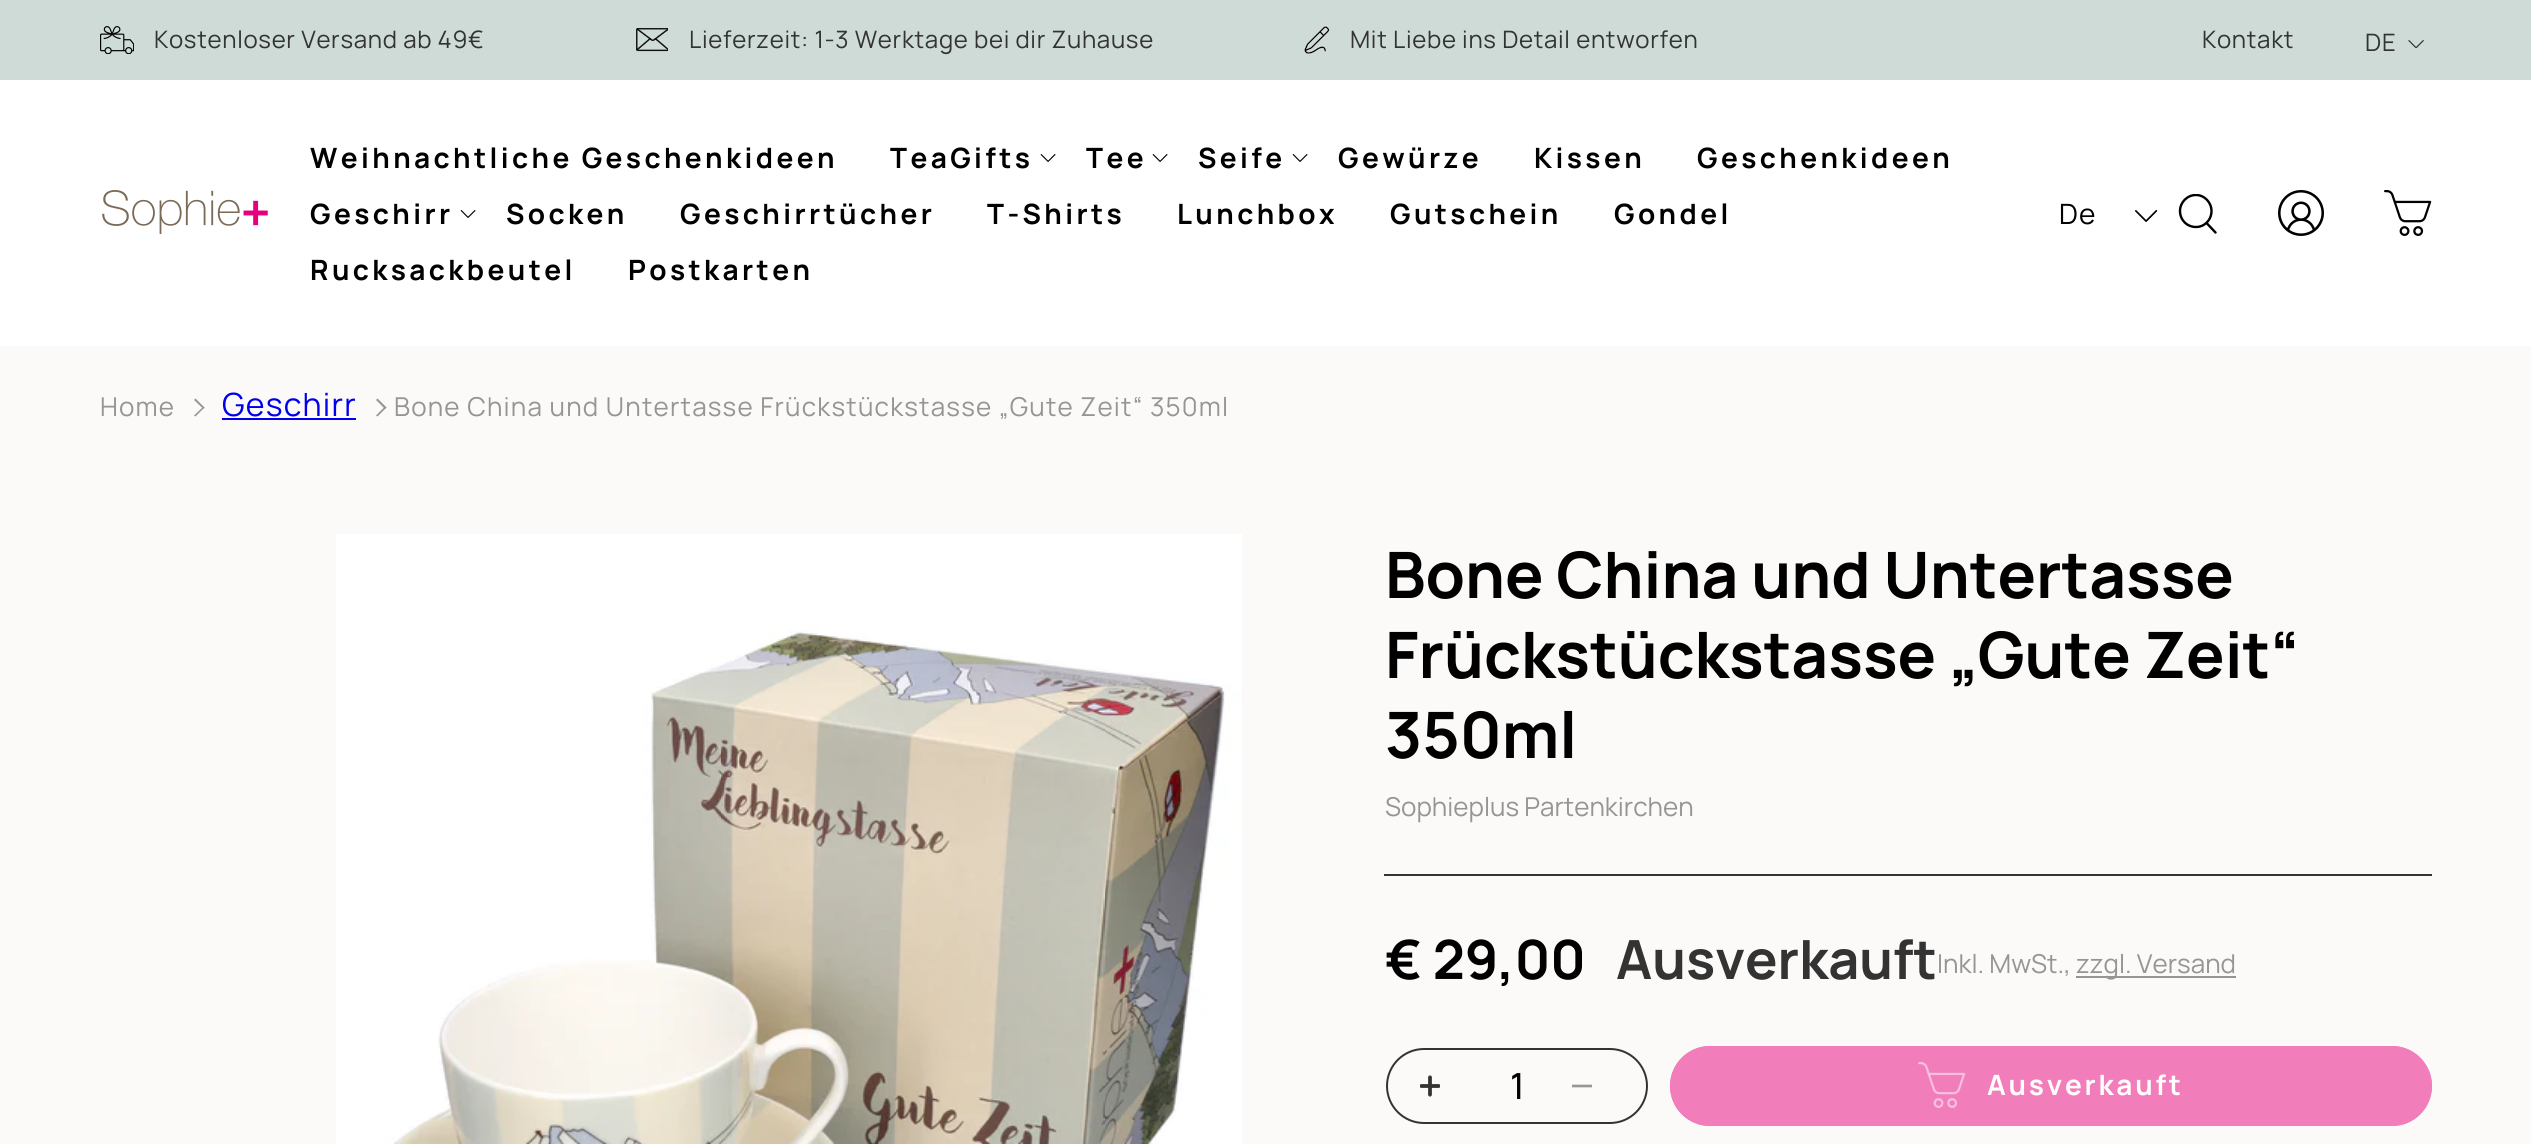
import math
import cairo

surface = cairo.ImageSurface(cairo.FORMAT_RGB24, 2531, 1144)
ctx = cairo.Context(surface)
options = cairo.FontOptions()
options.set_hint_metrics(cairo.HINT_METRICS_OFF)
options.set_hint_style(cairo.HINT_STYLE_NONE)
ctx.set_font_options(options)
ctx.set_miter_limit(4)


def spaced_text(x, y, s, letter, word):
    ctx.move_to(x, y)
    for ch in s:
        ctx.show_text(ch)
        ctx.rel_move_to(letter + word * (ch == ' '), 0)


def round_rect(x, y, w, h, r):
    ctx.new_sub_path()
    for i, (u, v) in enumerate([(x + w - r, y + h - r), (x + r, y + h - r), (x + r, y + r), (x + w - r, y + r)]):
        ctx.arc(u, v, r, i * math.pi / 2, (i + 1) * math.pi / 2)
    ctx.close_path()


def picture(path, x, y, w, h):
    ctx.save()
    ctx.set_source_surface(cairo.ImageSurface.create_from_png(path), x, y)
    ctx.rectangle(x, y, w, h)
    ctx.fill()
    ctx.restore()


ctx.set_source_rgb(0.988, 0.98, 0.969)
ctx.paint()
ctx.set_source_rgb(0.808, 0.859, 0.843)
ctx.rectangle(0, 0, 2531, 80)
ctx.fill()
picture("img1.png", 100, 26, 34, 28)
ctx.select_font_face("Manrope")
ctx.set_font_size(24)
ctx.set_source_rgb(0.2, 0.2, 0.2)
spaced_text(154, 48, "Kostenloser Versand ab 49€", 0.7, 0)
picture("img2.png", 636, 28, 32, 24)
spaced_text(689, 48, "Lieferzeit: 1-3 Werktage bei dir Zuhause", 0.7, 0)
picture("img3.png", 1304, 26, 26, 28)
spaced_text(1350, 48, "Mit Liebe ins Detail entworfen", 0.7, 0)
spaced_text(2202, 48, "Kontakt", 0.7, 0)
spaced_text(2365, 51, "DE", 1, 0)
picture("img4.png", 2408, 40, 16, 8)
ctx.set_source_rgb(1, 1, 1)
ctx.rectangle(0, 80, 2531, 266)
ctx.fill()
picture("img5.png", 102, 190, 166, 44)
ctx.select_font_face("Manrope", cairo.FONT_SLANT_NORMAL, cairo.FONT_WEIGHT_BOLD)
ctx.set_font_size(28)
ctx.set_source_rgb(0, 0, 0)
spaced_text(310, 168, "Weihnachtliche Geschenkideen", 3.4, 0)
spaced_text(890, 168, "TeaGifts", 3.4, 0)
picture("img6.png", 1040, 154, 16, 8)
spaced_text(1086, 168, "Tee", 3.4, 0)
picture("img6.png", 1152, 154, 16, 8)
spaced_text(1198, 168, "Seife", 3.4, 0)
picture("img6.png", 1292, 154, 16, 8)
spaced_text(1338, 168, "Gewürze", 3.4, 0)
spaced_text(1534, 168, "Kissen", 3.4, 0)
spaced_text(1697, 168, "Geschenkideen", 3.4, 0)
spaced_text(310, 224, "Geschirr", 3.4, 0)
picture("img6.png", 460, 210, 16, 8)
spaced_text(506, 224, "Socken", 3.4, 0)
spaced_text(680, 224, "Geschirrtücher", 3.4, 0)
spaced_text(987, 224, "T-Shirts", 3.4, 0)
spaced_text(1177, 224, "Lunchbox", 3.4, 0)
spaced_text(1390, 224, "Gutschein", 3.4, 0)
spaced_text(1614, 224, "Gondel", 3.4, 0)
spaced_text(310, 280, "Rucksackbeutel", 3.4, 0)
spaced_text(628, 280, "Postkarten", 3.4, 0)
ctx.select_font_face("Manrope")
spaced_text(2059, 224, "De", 1.2, 0)
picture("img7.png", 2135, 210, 23, 12)
ctx.save()
ctx.rectangle(2178, 194, 40, 40)
ctx.clip()
ctx.new_path()
ctx.move_to(2211.5, 211)
ctx.curve_to(2211.5, 220, 2204.5, 227, 2196, 227)
ctx.curve_to(2187, 227, 2180, 220, 2180, 211)
ctx.curve_to(2180, 202.5, 2187, 195, 2196, 195)
ctx.curve_to(2204.5, 195, 2211.5, 202.5, 2211.5, 211)
ctx.close_path()
ctx.set_line_width(2.4)
ctx.set_line_cap(cairo.LINE_CAP_ROUND)
ctx.set_line_join(cairo.LINE_JOIN_ROUND)
ctx.stroke()
ctx.restore()
ctx.new_path()
ctx.move_to(2215.5, 232.5)
ctx.line_to(2207, 223.5)
ctx.set_line_width(2.4)
ctx.set_line_cap(cairo.LINE_CAP_ROUND)
ctx.set_line_join(cairo.LINE_JOIN_ROUND)
ctx.stroke()
picture("img8.png", 2278, 190, 46, 46)
picture("img9.png", 2384, 190, 48, 46)
ctx.set_font_size(26)
ctx.set_source_rgb(0.584, 0.584, 0.584)
spaced_text(100, 416, "Home", 1.2, 0)
ctx.new_path()
ctx.move_to(195.5, 398.5)
ctx.line_to(204.5, 407.5)
ctx.line_to(203.5, 409)
ctx.line_to(194, 400)
ctx.close_path()
ctx.fill()
ctx.new_path()
ctx.move_to(203.5, 406.5)
ctx.line_to(204.5, 407.5)
ctx.line_to(195.5, 416.5)
ctx.line_to(194, 415.5)
ctx.close_path()
ctx.fill()
ctx.set_font_size(32)
ctx.set_source_rgb(0, 0, 0.933)
spaced_text(222, 416, "Geschirr", 1.2, 0)
ctx.rectangle(222, 418, 134, 2)
ctx.fill()
ctx.set_source_rgb(0.584, 0.584, 0.584)
ctx.new_path()
ctx.move_to(377.5, 398.5)
ctx.line_to(386.5, 407.5)
ctx.line_to(385, 409)
ctx.line_to(376, 400)
ctx.close_path()
ctx.fill()
ctx.new_path()
ctx.move_to(385, 406.5)
ctx.line_to(386.5, 407.5)
ctx.line_to(377.5, 416.5)
ctx.line_to(376, 415.5)
ctx.close_path()
ctx.fill()
ctx.set_font_size(26)
spaced_text(394, 416, "Bone China und Untertasse Frückstückstasse „Gute Zeit“ 350ml", 1.2, 0)
picture("img10.png", 336, 534, 906, 610)
ctx.select_font_face("Manrope", cairo.FONT_SLANT_NORMAL, cairo.FONT_WEIGHT_BOLD)
ctx.set_font_size(64)
ctx.set_source_rgb(0, 0, 0)
ctx.move_to(1385, 598)
ctx.show_text("Bone China und Untertasse")
ctx.move_to(1385, 678)
ctx.show_text("Frückstückstasse „Gute Zeit“")
ctx.move_to(1385, 758)
ctx.show_text("350ml")
ctx.select_font_face("Manrope")
ctx.set_font_size(26)
ctx.set_source_rgb(0.584, 0.584, 0.584)
ctx.move_to(1385, 816)
ctx.show_text("Sophieplus Partenkirchen")
ctx.set_source_rgb(0.2, 0.2, 0.2)
ctx.rectangle(1384, 874, 1048, 2)
ctx.fill()
ctx.select_font_face("Manrope", cairo.FONT_SLANT_NORMAL, cairo.FONT_WEIGHT_BOLD)
ctx.set_font_size(54)
ctx.set_source_rgb(0, 0, 0)
ctx.move_to(1385, 979)
ctx.show_text("€ 29,00")
ctx.set_source_rgb(0.2, 0.2, 0.2)
ctx.move_to(1616, 979)
ctx.show_text("Ausverkauft")
ctx.select_font_face("Manrope")
ctx.set_font_size(26)
ctx.set_source_rgb(0.584, 0.584, 0.584)
ctx.move_to(1937, 973)
ctx.show_text("Inkl. MwSt.,")
ctx.rectangle(2076, 976, 160, 2)
ctx.fill()
ctx.move_to(2076, 973)
ctx.show_text("zzgl. Versand")
picture("img11.png", 1420, 1075, 20, 22)
ctx.new_path()
ctx.move_to(1592, 1086)
ctx.line_to(1572, 1086)
ctx.set_source_rgb(0.596, 0.592, 0.584)
ctx.set_line_width(2.7)
ctx.set_line_cap(cairo.LINE_CAP_BUTT)
ctx.stroke()
round_rect(1387, 1049, 260, 74, 37)
ctx.set_source_rgb(0.2, 0.2, 0.2)
ctx.set_line_width(2)
ctx.set_line_join(cairo.LINE_JOIN_MITER)
ctx.stroke()
ctx.select_font_face("Manrope Medium")
ctx.set_font_size(36)
ctx.set_source_rgb(0, 0, 0)
ctx.move_to(1510, 1099)
ctx.show_text("1")
ctx.set_source_rgb(0.945, 0.49, 0.733)
round_rect(1670, 1046, 762, 80, 40)
ctx.fill()
picture("img12.png", 1918, 1062, 48, 46)
round_rect(1671, 1047, 760, 78, 39)
ctx.stroke()
ctx.select_font_face("Manrope", cairo.FONT_SLANT_NORMAL, cairo.FONT_WEIGHT_BOLD)
ctx.set_font_size(28)
ctx.set_source_rgb(0.996, 0.992, 0.984)
spaced_text(1987, 1095, "Ausverkauft", 2.75, 0)
surface.write_to_png("page.png")
